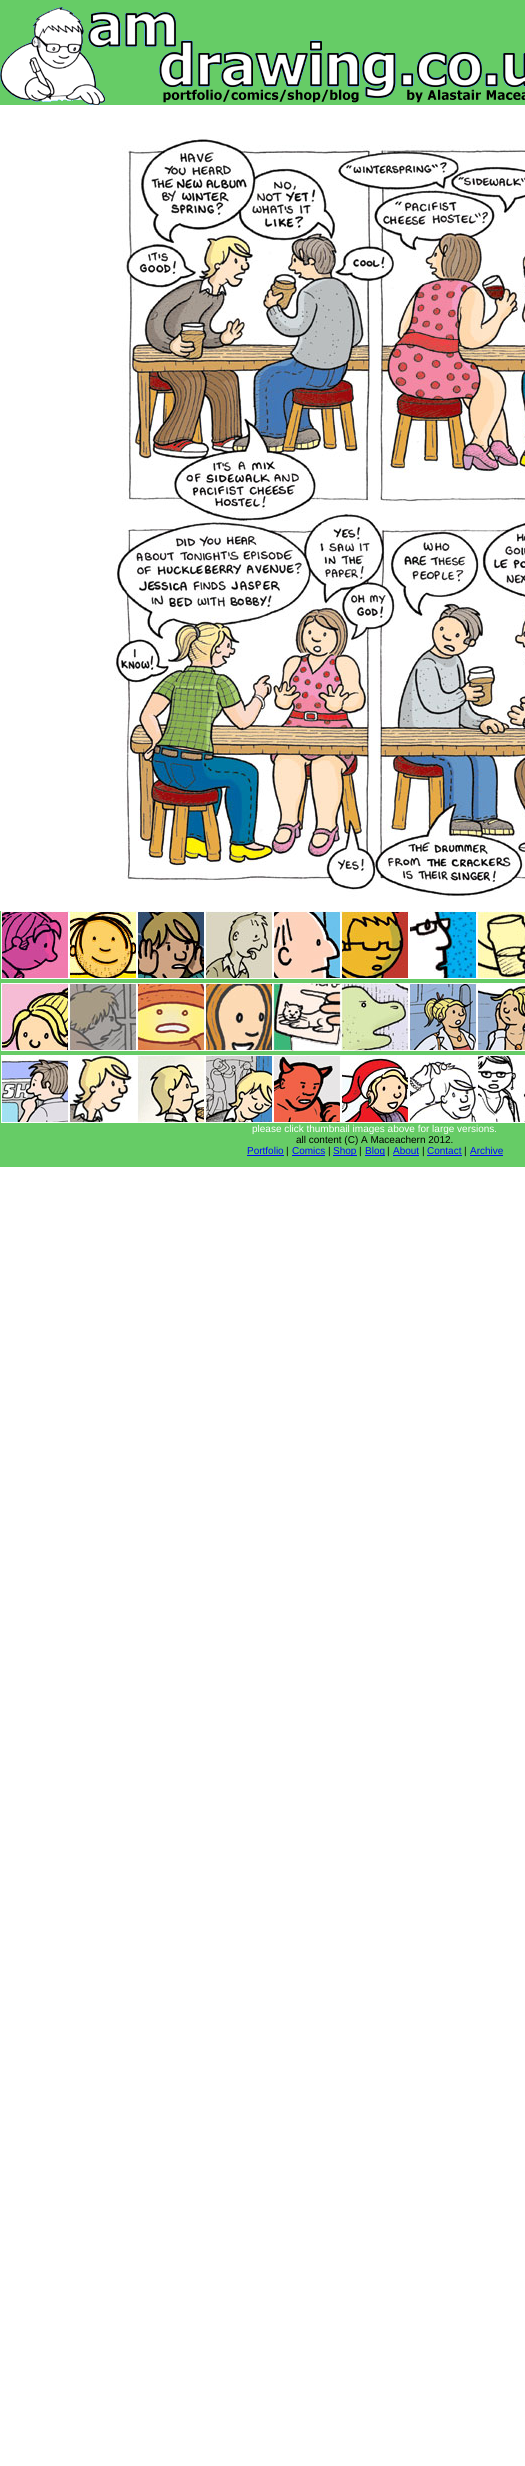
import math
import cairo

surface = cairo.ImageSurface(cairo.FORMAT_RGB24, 525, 2466)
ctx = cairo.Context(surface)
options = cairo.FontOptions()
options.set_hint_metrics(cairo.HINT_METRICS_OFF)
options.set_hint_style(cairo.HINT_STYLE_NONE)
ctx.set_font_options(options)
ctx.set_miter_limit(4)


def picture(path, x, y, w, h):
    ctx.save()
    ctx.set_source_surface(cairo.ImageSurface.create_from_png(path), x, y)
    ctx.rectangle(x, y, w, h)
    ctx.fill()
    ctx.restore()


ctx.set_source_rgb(1, 1, 1)
ctx.paint()
ctx.set_source_rgb(0.4, 0.8, 0.4)
ctx.rectangle(0, 0, 525, 105)
ctx.fill()
picture("img1.png", 0, 7, 160, 98)
picture("img2.png", 160, 12, 65, 91)
picture("img3.png", 225, 52, 60, 50)
picture("img4.png", 285, 40, 37, 63)
picture("img5.png", 322, 52, 43, 51)
picture("img6.png", 365, 52, 160, 51)
picture("img7.png", 114, 138, 411, 759)
ctx.rectangle(0, 911, 525, 256)
ctx.fill()
picture("img8.png", 1, 911, 68, 68)
picture("img9.png", 69, 911, 68, 68)
picture("img10.png", 137, 911, 68, 68)
picture("img11.png", 205, 911, 68, 68)
picture("img12.png", 273, 911, 68, 68)
picture("img13.png", 341, 911, 68, 68)
picture("img14.png", 409, 911, 68, 68)
picture("img15.png", 477, 911, 48, 68)
picture("img16.png", 1, 983, 68, 68)
picture("img17.png", 69, 983, 68, 68)
picture("img18.png", 137, 983, 68, 68)
picture("img19.png", 205, 983, 68, 68)
picture("img20.png", 273, 983, 68, 68)
picture("img21.png", 341, 983, 68, 68)
picture("img22.png", 409, 983, 68, 68)
picture("img23.png", 477, 983, 48, 68)
picture("img24.png", 1, 1055, 68, 68)
picture("img25.png", 69, 1055, 68, 68)
picture("img26.png", 137, 1055, 68, 68)
picture("img27.png", 205, 1055, 68, 68)
picture("img28.png", 273, 1055, 68, 68)
picture("img29.png", 341, 1055, 68, 68)
picture("img30.png", 409, 1055, 68, 68)
picture("img31.png", 477, 1055, 48, 68)
ctx.select_font_face("Liberation Sans")
ctx.set_font_size(10)
ctx.set_source_rgb(1, 1, 1)
ctx.move_to(252, 1132)
ctx.show_text("please click thumbnail images above for large versions.")
ctx.set_source_rgb(0, 0, 0)
ctx.move_to(296, 1143)
ctx.show_text("all content (C) A Maceachern 2012.")
ctx.set_source_rgb(0, 0, 1)
ctx.move_to(247, 1154)
ctx.show_text("Portfolio")
ctx.rectangle(247, 1155, 37, 1)
ctx.fill()
ctx.set_source_rgb(0, 0, 0)
ctx.move_to(286, 1154)
ctx.show_text("|")
ctx.set_source_rgb(0, 0, 1)
ctx.move_to(292, 1154)
ctx.show_text("Comics")
ctx.rectangle(292, 1155, 33, 1)
ctx.fill()
ctx.set_source_rgb(0, 0, 0)
ctx.move_to(328, 1154)
ctx.show_text("|")
ctx.set_source_rgb(0, 0, 1)
ctx.rectangle(333, 1155, 24, 1)
ctx.fill()
ctx.move_to(333, 1154)
ctx.show_text("Shop")
ctx.set_source_rgb(0, 0, 0)
ctx.move_to(359, 1154)
ctx.show_text("|")
ctx.set_source_rgb(0, 0, 1)
ctx.rectangle(365, 1155, 20, 1)
ctx.fill()
ctx.move_to(365, 1154)
ctx.show_text("Blog")
ctx.set_source_rgb(0, 0, 0)
ctx.move_to(387, 1154)
ctx.show_text("|")
ctx.set_source_rgb(0, 0, 1)
ctx.move_to(393, 1154)
ctx.show_text("About")
ctx.rectangle(393, 1155, 26, 1)
ctx.fill()
ctx.set_source_rgb(0, 0, 0)
ctx.move_to(422, 1154)
ctx.show_text("|")
ctx.set_source_rgb(0, 0, 1)
ctx.move_to(427, 1154)
ctx.show_text("Contact")
ctx.rectangle(427, 1155, 35, 1)
ctx.fill()
ctx.set_source_rgb(0, 0, 0)
ctx.move_to(464, 1154)
ctx.show_text("|")
ctx.set_source_rgb(0, 0, 1)
ctx.move_to(470, 1154)
ctx.show_text("Archive")
ctx.rectangle(470, 1155, 33, 1)
ctx.fill()
surface.write_to_png("page.png")
